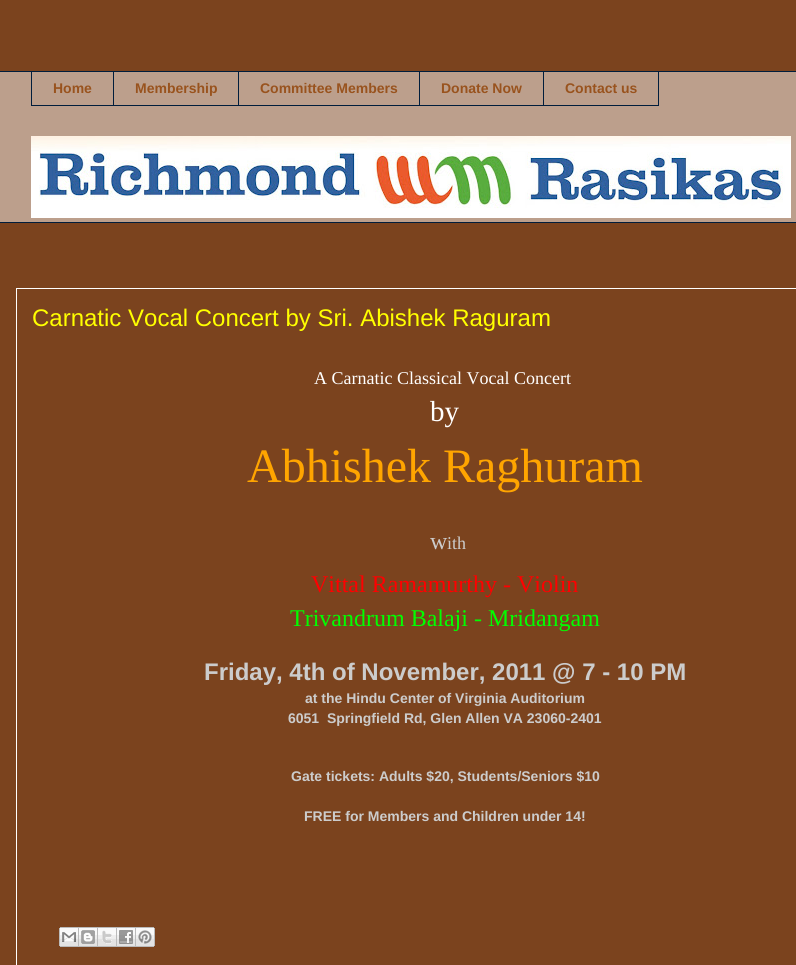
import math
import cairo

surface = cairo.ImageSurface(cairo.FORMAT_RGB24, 796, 965)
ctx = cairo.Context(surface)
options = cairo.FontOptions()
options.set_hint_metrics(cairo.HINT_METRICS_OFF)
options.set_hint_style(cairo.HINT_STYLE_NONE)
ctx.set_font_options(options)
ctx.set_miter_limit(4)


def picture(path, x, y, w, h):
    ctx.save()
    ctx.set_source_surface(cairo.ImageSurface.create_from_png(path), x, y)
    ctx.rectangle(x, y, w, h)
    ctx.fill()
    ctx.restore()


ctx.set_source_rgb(0.482, 0.263, 0.118)
ctx.paint()
ctx.set_source_rgb(0.737, 0.624, 0.549)
ctx.rectangle(0, 72, 796, 150)
ctx.fill()
ctx.set_source_rgb(0, 0.114, 0.235)
ctx.rectangle(0, 71, 796, 1)
ctx.fill()
ctx.rectangle(31, 105, 512, 1)
ctx.fill()
ctx.rectangle(31, 71, 1, 35)
ctx.fill()
ctx.select_font_face("Liberation Sans", cairo.FONT_SLANT_NORMAL, cairo.FONT_WEIGHT_BOLD)
ctx.set_font_size(14)
ctx.set_source_rgb(0.6, 0.325, 0.118)
ctx.move_to(53, 93)
ctx.show_text("Home")
ctx.set_source_rgb(0, 0.114, 0.235)
ctx.rectangle(113, 71, 1, 35)
ctx.fill()
ctx.set_source_rgb(0.6, 0.325, 0.118)
ctx.move_to(135, 93)
ctx.show_text("Membership")
ctx.set_source_rgb(0, 0.114, 0.235)
ctx.rectangle(238, 71, 1, 35)
ctx.fill()
ctx.set_source_rgb(0.6, 0.325, 0.118)
ctx.move_to(260, 93)
ctx.show_text("Committee Members")
ctx.set_source_rgb(0, 0.114, 0.235)
ctx.rectangle(419, 71, 1, 35)
ctx.fill()
ctx.set_source_rgb(0.6, 0.325, 0.118)
ctx.move_to(441, 93)
ctx.show_text("Donate Now")
ctx.rectangle(543.5, 71.5, 115, 34)
ctx.set_source_rgb(0, 0.114, 0.235)
ctx.set_line_width(1)
ctx.stroke()
ctx.set_source_rgb(0.6, 0.325, 0.118)
ctx.move_to(565, 93)
ctx.show_text("Contact us")
picture("img1.png", 31, 136, 760, 82)
ctx.set_source_rgb(0, 0.114, 0.235)
ctx.rectangle(0, 222, 796, 1)
ctx.fill()
ctx.rectangle(16.5, 288.5, 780, 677)
ctx.set_source_rgb(1, 1, 1)
ctx.stroke()
ctx.select_font_face("Liberation Sans")
ctx.set_font_size(24)
ctx.set_source_rgb(1, 1, 0)
ctx.move_to(32, 326)
ctx.show_text("Carnatic Vocal Concert by Sri. Abishek Raguram")
ctx.select_font_face("Liberation Serif")
ctx.set_font_size(18)
ctx.set_source_rgb(1, 1, 1)
ctx.move_to(314, 384)
ctx.show_text("A Carnatic Classical Vocal Concert")
ctx.set_font_size(29)
ctx.move_to(430, 421)
ctx.show_text("by")
ctx.set_font_size(48)
ctx.set_source_rgb(1, 0.647, 0)
ctx.move_to(247, 482)
ctx.show_text("Abhishek Raghuram")
ctx.set_font_size(24)
ctx.set_source_rgb(0.8, 0.8, 0.8)
ctx.move_to(430, 549)
ctx.show_text("w")
ctx.set_font_size(18)
ctx.move_to(447, 549)
ctx.show_text("ith")
ctx.set_font_size(24)
ctx.set_source_rgb(1, 0, 0)
ctx.move_to(311, 592)
ctx.show_text("Vittal Ramamurthy - Violin")
ctx.set_source_rgb(0, 1, 0)
ctx.move_to(290, 626)
ctx.show_text("Trivandrum Balaji - Mridangam")
ctx.select_font_face("Liberation Sans", cairo.FONT_SLANT_NORMAL, cairo.FONT_WEIGHT_BOLD)
ctx.set_source_rgb(0.8, 0.8, 0.8)
ctx.move_to(204, 680)
ctx.show_text("Friday, 4th of November, 2011 @ 7 - 10 PM")
ctx.set_font_size(14)
ctx.move_to(305, 703)
ctx.show_text("at the Hindu Center of Virginia Auditorium")
ctx.move_to(288, 723)
ctx.show_text("6051  Springfield Rd, Glen Allen VA 23060-2401")
ctx.move_to(291, 781)
ctx.show_text("Gate tickets: Adults $20, Students/Seniors $10")
ctx.move_to(304, 821)
ctx.show_text("FREE for Members and Children under 14!")
picture("img2.png", 59, 927, 20, 20)
picture("img3.png", 79, 927, 19, 20)
picture("img4.png", 98, 927, 19, 20)
picture("img5.png", 117, 927, 19, 20)
picture("img6.png", 136, 927, 19, 20)
surface.write_to_png("page.png")
